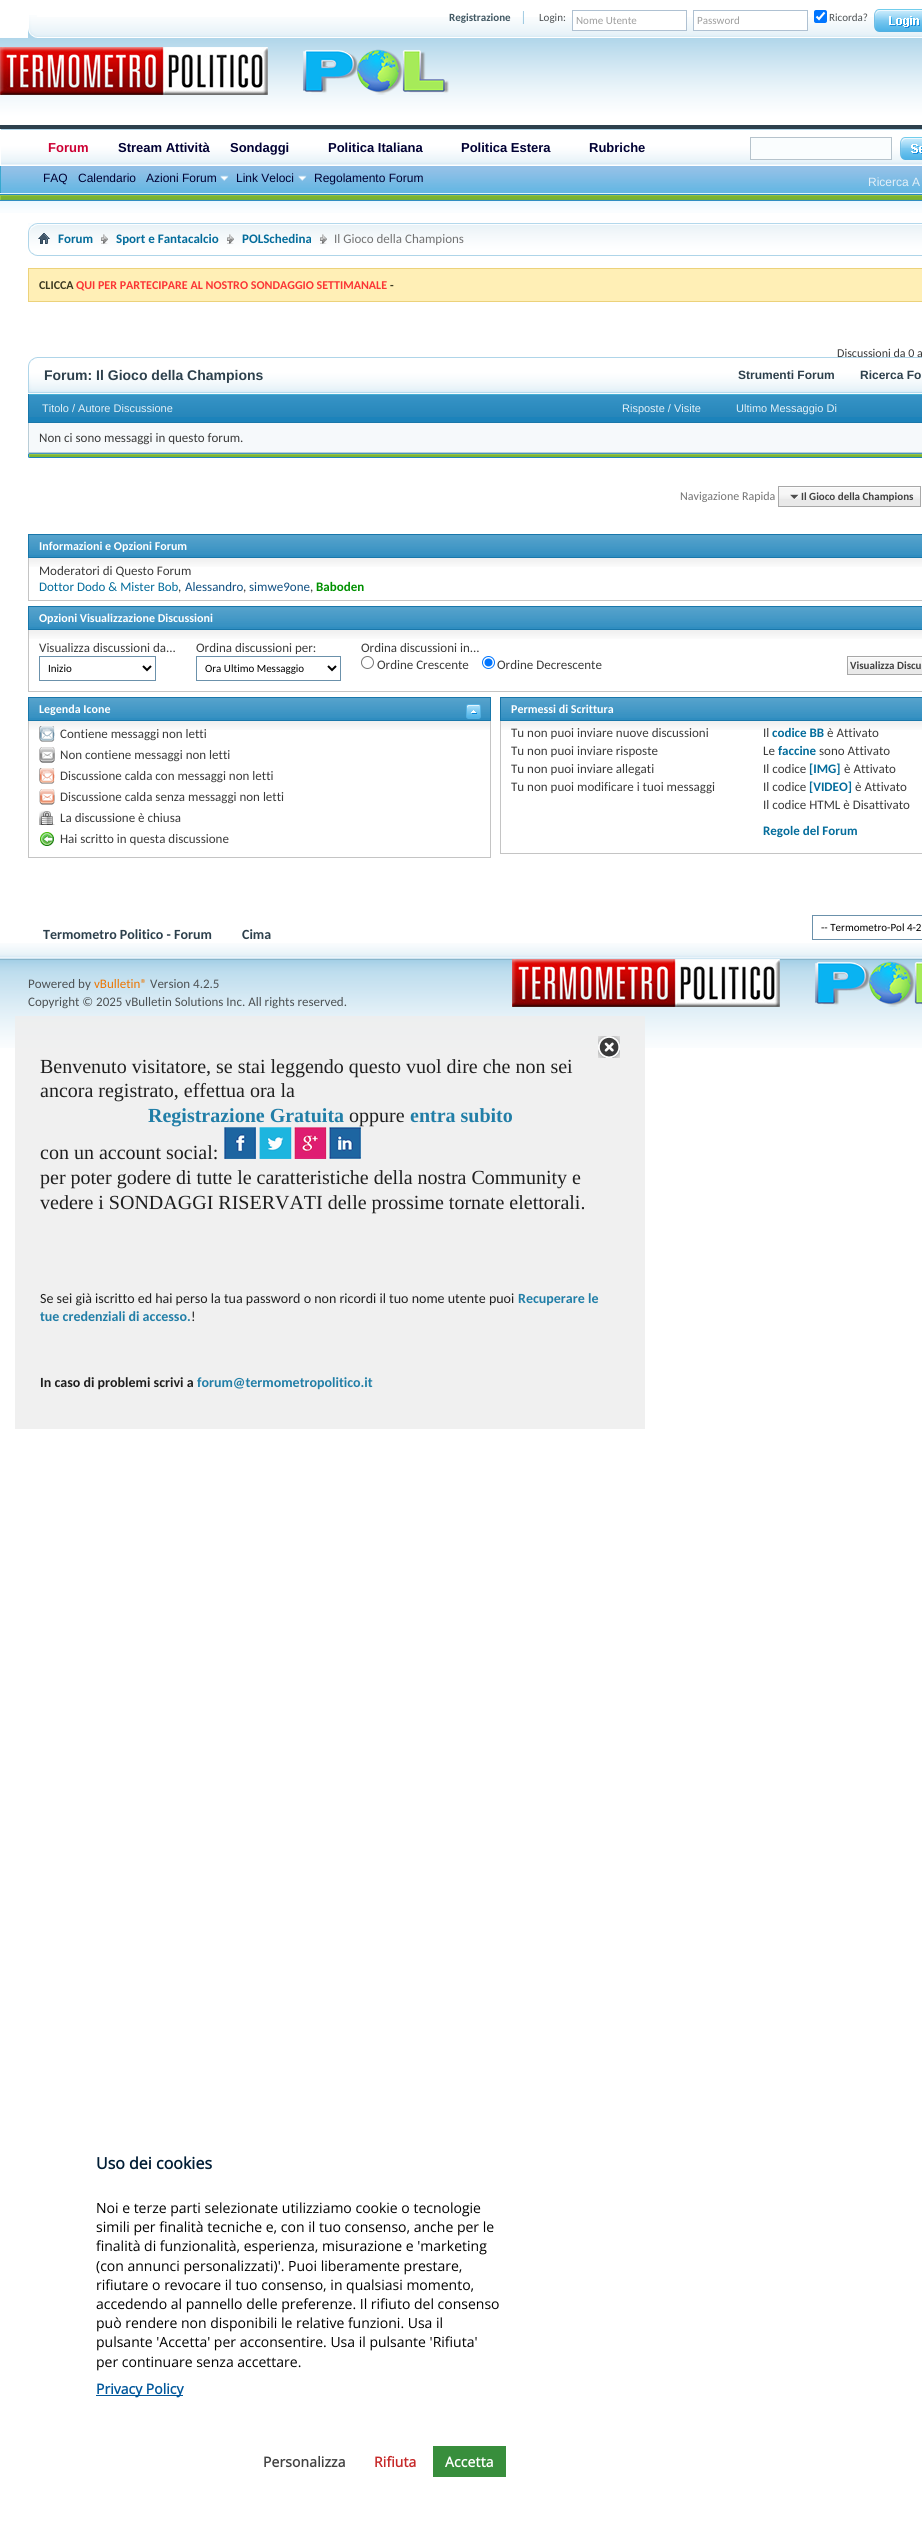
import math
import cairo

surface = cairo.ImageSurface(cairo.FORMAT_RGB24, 922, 2541)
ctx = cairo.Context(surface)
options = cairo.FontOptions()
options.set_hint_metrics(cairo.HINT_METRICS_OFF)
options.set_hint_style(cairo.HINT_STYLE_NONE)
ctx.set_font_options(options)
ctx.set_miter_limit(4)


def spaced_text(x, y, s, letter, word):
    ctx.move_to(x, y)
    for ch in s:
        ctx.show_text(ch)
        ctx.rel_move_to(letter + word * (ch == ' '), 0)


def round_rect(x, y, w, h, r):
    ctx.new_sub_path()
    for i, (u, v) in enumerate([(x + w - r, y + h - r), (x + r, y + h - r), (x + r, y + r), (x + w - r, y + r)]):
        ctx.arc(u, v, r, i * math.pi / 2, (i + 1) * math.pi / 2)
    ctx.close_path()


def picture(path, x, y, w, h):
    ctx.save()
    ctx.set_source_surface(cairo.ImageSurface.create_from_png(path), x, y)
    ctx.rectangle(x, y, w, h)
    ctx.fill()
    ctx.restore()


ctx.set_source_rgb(1, 1, 1)
ctx.paint()
picture("img1.png", 37, 17, 885, 20)
picture("img2.png", 28, 15, 9, 23)
ctx.select_font_face("Carlito", cairo.FONT_SLANT_NORMAL, cairo.FONT_WEIGHT_BOLD)
ctx.set_font_size(11)
ctx.set_source_rgb(0.259, 0.345, 0.388)
ctx.move_to(449, 21)
ctx.show_text("Registrazione")
picture("img3.png", 522, 11, 2, 13)
ctx.select_font_face("Carlito")
ctx.set_source_rgb(0.302, 0.318, 0.325)
ctx.move_to(539, 21)
ctx.show_text("Login:")
ctx.set_source_rgb(1, 1, 1)
ctx.rectangle(573, 17, 113, 13)
ctx.fill()
ctx.rectangle(572.5, 10.5, 114, 20)
ctx.set_source_rgb(0.686, 0.757, 0.824)
ctx.set_line_width(1)
ctx.stroke()
ctx.set_source_rgb(0.62, 0.62, 0.62)
ctx.move_to(576, 24)
ctx.show_text("Nome Utente")
ctx.set_source_rgb(1, 1, 1)
ctx.rectangle(694, 17, 113, 13)
ctx.fill()
ctx.rectangle(693.5, 10.5, 114, 20)
ctx.set_source_rgb(0.686, 0.757, 0.824)
ctx.stroke()
ctx.set_source_rgb(0.62, 0.62, 0.62)
ctx.move_to(697, 24)
ctx.show_text("Password")
ctx.set_source_rgb(0, 0.459, 1)
round_rect(814, 10, 13, 13, 2)
ctx.fill()
ctx.new_path()
ctx.move_to(816.5, 16.5)
ctx.line_to(819, 19)
ctx.line_to(824.5, 12.5)
ctx.set_source_rgb(1, 1, 1)
ctx.set_line_width(2.1)
ctx.stroke()
ctx.set_source_rgb(0.302, 0.318, 0.325)
ctx.move_to(829, 21)
ctx.show_text("Ricorda?")
picture("img4.png", 874, 9, 48, 23)
ctx.set_source_rgb(0.176, 0.251, 0.298)
ctx.rectangle(0, 125, 922, 4)
ctx.fill()
picture("img5.png", 0, 38, 922, 87)
picture("img6.png", 0, 47, 449, 48)
picture("img7.png", 0, 129, 922, 72)
picture("img8.png", 0, 129, 1, 71)
picture("img9.png", 28, 129, 894, 37)
picture("img10.png", 28, 129, 80, 36)
ctx.select_font_face("Liberation Sans", cairo.FONT_SLANT_NORMAL, cairo.FONT_WEIGHT_BOLD)
ctx.set_font_size(13)
ctx.set_source_rgb(0.8, 0, 0.2)
ctx.move_to(48, 152)
ctx.show_text("Forum")
picture("img11.png", 108, 129, 112, 36)
ctx.set_source_rgb(0, 0, 0.2)
ctx.move_to(118, 152)
ctx.show_text("Stream Attività")
picture("img12.png", 220, 129, 98, 36)
ctx.move_to(230, 152)
ctx.show_text("Sondaggi")
picture("img13.png", 318, 129, 133, 36)
ctx.move_to(328, 152)
ctx.show_text("Politica Italiana")
picture("img14.png", 451, 129, 128, 36)
ctx.move_to(461, 152)
ctx.show_text("Politica Estera")
picture("img15.png", 579, 129, 95, 36)
ctx.move_to(589, 152)
ctx.show_text("Rubriche")
ctx.select_font_face("Liberation Sans")
ctx.set_font_size(12)
ctx.move_to(43, 182)
ctx.show_text("FAQ")
ctx.move_to(78, 182)
ctx.show_text("Calendario")
ctx.move_to(146, 182)
ctx.show_text("Azioni Forum")
picture("img16.png", 220, 175, 9, 6)
ctx.move_to(236, 182)
ctx.show_text("Link Veloci")
picture("img16.png", 298, 175, 9, 6)
ctx.move_to(314, 182)
ctx.show_text("Regolamento Forum")
ctx.set_source_rgb(0.98, 0.992, 0.996)
ctx.rectangle(750.5, 137.5, 141, 22)
ctx.fill_preserve()
ctx.set_source_rgb(0.714, 0.765, 0.8)
ctx.set_line_width(1)
ctx.stroke()
picture("img17.png", 900, 137, 22, 23)
ctx.set_source_rgb(0.89, 0.941, 0.969)
ctx.move_to(868, 186)
ctx.show_text("Ricerca A")
picture("img47.png", 0, 959, 922, 89)
ctx.set_source_rgba(0.933, 0.933, 0.933, 0.88)
ctx.rectangle(15, 1016, 630, 413)
ctx.fill()
picture("img18.png", 598, 1036, 22, 22)
ctx.select_font_face("Liberation Serif")
ctx.set_font_size(20)
ctx.set_source_rgb(0.122, 0.122, 0.122)
ctx.move_to(40, 1073)
ctx.show_text("Benvenuto visitatore, se stai leggendo questo vuol dire che non sei")
ctx.move_to(40, 1097)
ctx.show_text("ancora registrato, effettua ora la")
ctx.select_font_face("Liberation Serif", cairo.FONT_SLANT_NORMAL, cairo.FONT_WEIGHT_BOLD)
ctx.set_source_rgb(0.129, 0.494, 0.655)
ctx.move_to(148, 1122)
ctx.show_text("Registrazione Gratuita")
ctx.select_font_face("Liberation Serif")
ctx.set_source_rgb(0.122, 0.122, 0.122)
ctx.move_to(349, 1122)
ctx.show_text("oppure")
ctx.select_font_face("Liberation Serif", cairo.FONT_SLANT_NORMAL, cairo.FONT_WEIGHT_BOLD)
ctx.set_source_rgb(0.129, 0.494, 0.655)
ctx.move_to(410, 1122)
ctx.show_text("entra subito")
ctx.select_font_face("Liberation Serif")
ctx.set_source_rgb(0.122, 0.122, 0.122)
ctx.move_to(40, 1159)
ctx.show_text("con un account social:")
picture("img19.png", 224, 1127, 137, 32)
ctx.move_to(40, 1184)
ctx.show_text("per poter godere di tutte le caratteristiche della nostra Community e")
ctx.move_to(40, 1209)
ctx.show_text("vedere i SONDAGGI RISERVATI delle prossime tornate elettorali.")
ctx.select_font_face("Carlito")
ctx.set_font_size(14)
ctx.move_to(40, 1303)
ctx.show_text("Se sei già iscritto ed hai perso la tua password o non ricordi il tuo nome utente puoi")
ctx.select_font_face("Carlito", cairo.FONT_SLANT_NORMAL, cairo.FONT_WEIGHT_BOLD)
ctx.set_source_rgb(0.129, 0.494, 0.655)
ctx.move_to(518, 1303)
ctx.show_text("Recuperare le")
ctx.move_to(40, 1321)
ctx.show_text("tue credenziali di accesso.")
ctx.select_font_face("Carlito")
ctx.set_source_rgb(0.122, 0.122, 0.122)
ctx.move_to(191, 1321)
ctx.show_text("!")
ctx.select_font_face("Carlito", cairo.FONT_SLANT_NORMAL, cairo.FONT_WEIGHT_BOLD)
ctx.move_to(40, 1387)
ctx.show_text("In caso di problemi scrivi a")
ctx.set_source_rgb(0.129, 0.494, 0.655)
ctx.move_to(197, 1387)
ctx.show_text("forum@termometropolitico.it")
picture("img20.png", 0, 201, 922, 12)
picture("img21.png", 37, 223, 885, 33)
picture("img22.png", 28, 223, 9, 33)
picture("img23.png", 38, 233, 12, 11)
picture("img24.png", 101, 234, 7, 10)
ctx.set_font_size(13)
ctx.set_source_rgb(0.012, 0.424, 0.608)
ctx.move_to(58, 243)
ctx.show_text("Forum")
picture("img24.png", 227, 234, 7, 10)
ctx.move_to(116, 243)
ctx.show_text("Sport e Fantacalcio")
picture("img24.png", 320, 234, 7, 10)
ctx.move_to(242, 243)
ctx.show_text("POLSchedina")
ctx.select_font_face("Carlito")
ctx.set_source_rgb(0.451, 0.451, 0.451)
ctx.move_to(334, 243)
ctx.show_text("Il Gioco della Champions")
ctx.set_source_rgb(1, 0.937, 0.714)
ctx.rectangle(28.5, 268.5, 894, 33)
ctx.fill_preserve()
ctx.set_source_rgb(0.922, 0.824, 0.482)
ctx.stroke()
ctx.select_font_face("Carlito", cairo.FONT_SLANT_NORMAL, cairo.FONT_WEIGHT_BOLD)
ctx.set_font_size(12)
ctx.set_source_rgb(0.235, 0.227, 0.133)
ctx.move_to(39, 289)
ctx.show_text("CLICCA")
ctx.set_source_rgb(0.984, 0.208, 0.208)
ctx.move_to(76, 289)
ctx.show_text("QUI PER PARTECIPARE AL NOSTRO SONDAGGIO SETTIMANALE")
ctx.set_source_rgb(0.235, 0.227, 0.133)
ctx.move_to(390, 289)
ctx.show_text("-")
ctx.select_font_face("Carlito")
ctx.set_source_rgb(0.227, 0.227, 0.227)
ctx.move_to(837, 357)
ctx.show_text("Discussioni da 0 a")
picture("img25.png", 28, 357, 894, 37)
picture("img26.png", 28, 357, 9, 35)
ctx.select_font_face("Liberation Sans", cairo.FONT_SLANT_NORMAL, cairo.FONT_WEIGHT_BOLD)
ctx.set_font_size(14)
ctx.set_source_rgb(0.176, 0.251, 0.298)
ctx.move_to(44, 380)
ctx.show_text("Forum: Il Gioco della Champions")
ctx.set_font_size(12)
ctx.move_to(738, 379)
ctx.show_text("Strumenti Forum")
ctx.move_to(860, 379)
ctx.show_text("Ricerca Fo")
ctx.set_source_rgb(0.11, 0.514, 0.733)
ctx.rectangle(29, 417, 893, 5)
ctx.fill()
picture("img27.png", 29, 394, 893, 23)
ctx.set_source_rgb(0.098, 0.467, 0.667)
ctx.rectangle(28, 422, 894, 1)
ctx.fill()
ctx.rectangle(28, 394, 1, 29)
ctx.fill()
ctx.select_font_face("Liberation Sans")
ctx.set_font_size(11)
ctx.set_source_rgb(0.89, 0.941, 0.969)
ctx.move_to(42, 412)
ctx.show_text("Titolo / Autore Discussione")
ctx.move_to(622, 412)
ctx.show_text("Risposte / Visite")
ctx.move_to(736, 412)
ctx.show_text("Ultimo Messaggio Di")
ctx.set_source_rgb(0.961, 0.976, 0.984)
ctx.rectangle(29, 423, 893, 29)
ctx.fill()
ctx.set_source_rgb(0.725, 0.804, 0.843)
ctx.rectangle(28, 452, 894, 1)
ctx.fill()
ctx.rectangle(28, 423, 1, 30)
ctx.fill()
ctx.select_font_face("Carlito")
ctx.set_font_size(13)
ctx.set_source_rgb(0.227, 0.227, 0.227)
ctx.move_to(39, 442)
ctx.show_text("Non ci sono messaggi in questo forum.")
picture("img28.png", 30, 453, 892, 5)
picture("img29.png", 28, 453, 2, 5)
ctx.set_font_size(12)
ctx.set_source_rgb(0.451, 0.451, 0.451)
ctx.move_to(680, 500)
ctx.show_text("Navigazione Rapida")
ctx.set_source_rgb(0.914, 0.914, 0.914)
ctx.rectangle(779, 487, 141, 19)
ctx.fill()
picture("img30.png", 779, 487, 141, 12)
ctx.rectangle(778.5, 486.5, 142, 20)
ctx.set_source_rgb(0.659, 0.659, 0.659)
ctx.stroke()
picture("img31.png", 790, 494, 9, 6)
ctx.select_font_face("Carlito", cairo.FONT_SLANT_NORMAL, cairo.FONT_WEIGHT_BOLD)
ctx.set_font_size(11)
ctx.set_source_rgb(0.259, 0.259, 0.259)
ctx.move_to(801, 500)
ctx.show_text("Il Gioco della Champions")
ctx.set_source_rgb(0.184, 0.553, 0.753)
ctx.rectangle(29, 535, 893, 22)
ctx.fill()
picture("img32.png", 29, 535, 893, 20)
ctx.rectangle(28.5, 534.5, 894, 23)
ctx.set_source_rgb(0.098, 0.467, 0.667)
ctx.stroke()
ctx.set_font_size(12)
ctx.set_source_rgb(1, 1, 1)
ctx.move_to(39, 550)
ctx.show_text("Informazioni e Opzioni Forum")
picture("img33.png", 29, 558, 893, 9)
ctx.set_source_rgb(0.769, 0.769, 0.769)
ctx.rectangle(28, 600, 894, 1)
ctx.fill()
ctx.rectangle(28, 558, 1, 43)
ctx.fill()
ctx.select_font_face("Carlito")
ctx.set_font_size(13)
ctx.set_source_rgb(0.227, 0.227, 0.227)
ctx.move_to(39, 575)
ctx.show_text("Moderatori di Questo Forum")
ctx.set_source_rgb(0.012, 0.424, 0.608)
ctx.move_to(39, 591)
ctx.show_text("Dottor Dodo & Mister Bob")
ctx.set_source_rgb(0.227, 0.227, 0.227)
ctx.move_to(178, 591)
ctx.show_text(",")
ctx.set_source_rgb(0.059, 0.31, 0.506)
ctx.move_to(185, 591)
ctx.show_text("Alessandro")
ctx.set_source_rgb(0.227, 0.227, 0.227)
ctx.move_to(243, 591)
ctx.show_text(",")
ctx.set_source_rgb(0.059, 0.31, 0.506)
ctx.move_to(249, 591)
ctx.show_text("simwe9one")
ctx.set_source_rgb(0.227, 0.227, 0.227)
ctx.move_to(310, 591)
ctx.show_text(",")
ctx.select_font_face("Carlito", cairo.FONT_SLANT_NORMAL, cairo.FONT_WEIGHT_BOLD)
ctx.set_source_rgb(0, 0.565, 0)
ctx.move_to(316, 591)
ctx.show_text("Baboden")
ctx.set_source_rgb(0.184, 0.553, 0.753)
ctx.rectangle(29, 607, 893, 22)
ctx.fill()
picture("img32.png", 29, 607, 893, 20)
ctx.rectangle(28.5, 606.5, 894, 23)
ctx.set_source_rgb(0.098, 0.467, 0.667)
ctx.stroke()
ctx.set_font_size(12)
ctx.set_source_rgb(1, 1, 1)
ctx.move_to(39, 622)
ctx.show_text("Opzioni Visualizzazione Discussioni")
picture("img33.png", 29, 630, 893, 9)
ctx.set_source_rgb(0.769, 0.769, 0.769)
ctx.rectangle(28, 691, 894, 1)
ctx.fill()
ctx.rectangle(28, 630, 1, 62)
ctx.fill()
ctx.select_font_face("Carlito")
ctx.set_font_size(13)
ctx.set_source_rgb(0.227, 0.227, 0.227)
ctx.move_to(39, 652)
ctx.show_text("Visualizza discussioni da...")
ctx.rectangle(39.5, 656.5, 116, 24)
ctx.set_source_rgb(0.42, 0.569, 0.671)
ctx.stroke()
ctx.new_path()
ctx.move_to(143, 666)
ctx.line_to(147, 670)
ctx.line_to(151, 666)
ctx.set_source_rgb(0, 0, 0)
ctx.set_line_width(2)
ctx.stroke()
ctx.set_font_size(11)
ctx.move_to(48, 672)
ctx.show_text("Inizio")
ctx.set_font_size(13)
ctx.set_source_rgb(0.227, 0.227, 0.227)
ctx.move_to(196, 652)
ctx.show_text("Ordina discussioni per:")
ctx.rectangle(196.5, 656.5, 144, 24)
ctx.set_source_rgb(0.42, 0.569, 0.671)
ctx.set_line_width(1)
ctx.stroke()
ctx.new_path()
ctx.move_to(328, 666)
ctx.line_to(332, 670)
ctx.line_to(336, 666)
ctx.set_source_rgb(0, 0, 0)
ctx.set_line_width(2)
ctx.stroke()
ctx.set_font_size(11)
ctx.move_to(205, 672)
ctx.show_text("Ora Ultimo Messaggio")
ctx.set_font_size(13)
ctx.set_source_rgb(0.227, 0.227, 0.227)
ctx.move_to(361, 652)
ctx.show_text("Ordina discussioni in...")
ctx.new_path()
ctx.arc(367.5, 662.5, 6, 0, 2 * math.pi)
ctx.set_source_rgb(0.463, 0.463, 0.463)
ctx.set_line_width(1)
ctx.stroke()
ctx.set_source_rgb(0.227, 0.227, 0.227)
ctx.move_to(377, 669)
ctx.show_text("Ordine Crescente")
ctx.new_path()
ctx.arc(488.5, 662.5, 6, 0, 2 * math.pi)
ctx.set_source_rgb(0, 0.459, 1)
ctx.stroke()
ctx.arc(488.5, 662.5, 4, 0, 2 * math.pi)
ctx.fill()
ctx.set_source_rgb(0.227, 0.227, 0.227)
ctx.move_to(497, 669)
ctx.show_text("Ordine Decrescente")
ctx.set_source_rgb(0.914, 0.914, 0.914)
ctx.rectangle(848, 657, 74, 17)
ctx.fill()
picture("img34.png", 848, 657, 74, 12)
ctx.rectangle(847.5, 656.5, 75, 18)
ctx.set_source_rgb(0.659, 0.659, 0.659)
ctx.stroke()
ctx.select_font_face("Carlito", cairo.FONT_SLANT_NORMAL, cairo.FONT_WEIGHT_BOLD)
ctx.set_font_size(11)
ctx.set_source_rgb(0.259, 0.259, 0.259)
ctx.move_to(850, 669)
ctx.show_text("Visualizza Discu")
ctx.set_source_rgb(0.184, 0.553, 0.753)
ctx.rectangle(29, 698, 461, 22)
ctx.fill()
picture("img35.png", 29, 698, 461, 20)
ctx.rectangle(28.5, 697.5, 462, 23)
ctx.set_source_rgb(0.098, 0.467, 0.667)
ctx.stroke()
ctx.set_font_size(12)
ctx.set_source_rgb(1, 1, 1)
ctx.move_to(39, 713)
ctx.show_text("Legenda Icone")
picture("img36.png", 466, 704, 15, 15)
picture("img37.png", 29, 721, 461, 9)
ctx.set_source_rgb(0.769, 0.769, 0.769)
ctx.rectangle(490, 721, 1, 137)
ctx.fill()
ctx.rectangle(28, 857, 463, 1)
ctx.fill()
ctx.rectangle(28, 721, 1, 137)
ctx.fill()
picture("img38.png", 39, 726, 16, 16)
ctx.select_font_face("Carlito")
ctx.set_font_size(13)
ctx.set_source_rgb(0.227, 0.227, 0.227)
ctx.move_to(60, 738)
ctx.show_text("Contiene messaggi non letti")
picture("img39.png", 39, 747, 16, 16)
ctx.move_to(60, 759)
ctx.show_text("Non contiene messaggi non letti")
picture("img40.png", 39, 768, 16, 16)
ctx.move_to(60, 780)
ctx.show_text("Discussione calda con messaggi non letti")
picture("img41.png", 39, 789, 16, 16)
ctx.move_to(60, 801)
ctx.show_text("Discussione calda senza messaggi non letti")
picture("img42.png", 39, 810, 16, 15)
ctx.move_to(60, 822)
ctx.show_text("La discussione è chiusa")
picture("img43.png", 40, 832, 14, 14)
ctx.move_to(60, 843)
ctx.show_text("Hai scritto in questa discussione")
ctx.set_source_rgb(0.184, 0.553, 0.753)
ctx.rectangle(501, 698, 421, 22)
ctx.fill()
picture("img44.png", 501, 698, 421, 20)
ctx.rectangle(500.5, 697.5, 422, 23)
ctx.set_source_rgb(0.098, 0.467, 0.667)
ctx.stroke()
ctx.select_font_face("Carlito", cairo.FONT_SLANT_NORMAL, cairo.FONT_WEIGHT_BOLD)
ctx.set_font_size(12)
ctx.set_source_rgb(1, 1, 1)
ctx.move_to(511, 713)
ctx.show_text("Permessi di Scrittura")
picture("img45.png", 501, 721, 421, 9)
ctx.set_source_rgb(0.769, 0.769, 0.769)
ctx.rectangle(500, 853, 422, 1)
ctx.fill()
ctx.rectangle(500, 721, 1, 133)
ctx.fill()
ctx.select_font_face("Carlito")
ctx.set_font_size(13)
ctx.set_source_rgb(0.227, 0.227, 0.227)
ctx.move_to(511, 737)
ctx.show_text("Tu non puoi inviare nuove discussioni")
ctx.move_to(511, 755)
ctx.show_text("Tu non puoi inviare risposte")
ctx.move_to(511, 773)
ctx.show_text("Tu non puoi inviare allegati")
ctx.move_to(511, 791)
ctx.show_text("Tu non puoi modificare i tuoi messaggi")
ctx.move_to(763, 737)
ctx.show_text("Il")
ctx.select_font_face("Carlito", cairo.FONT_SLANT_NORMAL, cairo.FONT_WEIGHT_BOLD)
ctx.set_source_rgb(0.012, 0.424, 0.608)
ctx.move_to(772, 737)
ctx.show_text("codice BB")
ctx.select_font_face("Carlito")
ctx.set_source_rgb(0.227, 0.227, 0.227)
ctx.move_to(827, 737)
ctx.show_text("è Attivato")
ctx.move_to(763, 755)
ctx.show_text("Le")
ctx.select_font_face("Carlito", cairo.FONT_SLANT_NORMAL, cairo.FONT_WEIGHT_BOLD)
ctx.set_source_rgb(0.012, 0.424, 0.608)
ctx.move_to(778, 755)
ctx.show_text("faccine")
ctx.select_font_face("Carlito")
ctx.set_source_rgb(0.227, 0.227, 0.227)
ctx.move_to(819, 755)
ctx.show_text("sono Attivato")
ctx.move_to(763, 773)
ctx.show_text("Il codice")
ctx.select_font_face("Carlito", cairo.FONT_SLANT_NORMAL, cairo.FONT_WEIGHT_BOLD)
ctx.set_source_rgb(0.012, 0.424, 0.608)
ctx.move_to(809, 773)
ctx.show_text("[IMG]")
ctx.select_font_face("Carlito")
ctx.set_source_rgb(0.227, 0.227, 0.227)
ctx.move_to(844, 773)
ctx.show_text("è Attivato")
ctx.move_to(763, 791)
ctx.show_text("Il codice")
ctx.select_font_face("Carlito", cairo.FONT_SLANT_NORMAL, cairo.FONT_WEIGHT_BOLD)
ctx.set_source_rgb(0.012, 0.424, 0.608)
ctx.move_to(809, 791)
ctx.show_text("[VIDEO]")
ctx.select_font_face("Carlito")
ctx.set_source_rgb(0.227, 0.227, 0.227)
ctx.move_to(855, 791)
ctx.show_text("è Attivato")
ctx.move_to(763, 809)
ctx.show_text("Il codice HTML è Disattivato")
ctx.select_font_face("Carlito", cairo.FONT_SLANT_NORMAL, cairo.FONT_WEIGHT_BOLD)
ctx.set_source_rgb(0.012, 0.424, 0.608)
ctx.move_to(763, 835)
ctx.show_text("Regole del Forum")
picture("img46.png", 0, 943, 922, 16)
ctx.rectangle(812.5, 915.5, 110, 24)
ctx.set_source_rgb(0.42, 0.569, 0.671)
ctx.stroke()
ctx.select_font_face("Carlito")
ctx.set_font_size(11)
ctx.set_source_rgb(0, 0, 0)
ctx.move_to(821, 931)
ctx.show_text("-- Termometro-Pol 4-2")
ctx.select_font_face("Carlito", cairo.FONT_SLANT_NORMAL, cairo.FONT_WEIGHT_BOLD)
ctx.set_font_size(14)
ctx.set_source_rgb(0.176, 0.251, 0.298)
ctx.move_to(43, 939)
ctx.show_text("Termometro Politico - Forum")
ctx.move_to(242, 939)
ctx.show_text("Cima")
ctx.select_font_face("Carlito")
ctx.set_font_size(13)
ctx.set_source_rgb(0.302, 0.318, 0.325)
ctx.move_to(28, 988)
ctx.show_text("Powered by")
ctx.set_source_rgb(0.925, 0.459, 0)
ctx.move_to(94, 988)
ctx.show_text("vBulletin®")
ctx.set_source_rgb(0.302, 0.318, 0.325)
ctx.move_to(150, 988)
ctx.show_text("Version 4.2.5")
ctx.move_to(28, 1006)
ctx.show_text("Copyright © 2025 vBulletin Solutions Inc. All rights reserved.")
picture("img48.png", 512, 959, 410, 48)
ctx.select_font_face("Open Sans", cairo.FONT_SLANT_NORMAL, cairo.FONT_WEIGHT_BOLD)
ctx.set_font_size(16)
ctx.set_source_rgb(0, 0.114, 0.208)
ctx.move_to(96, 2169)
ctx.show_text("Uso dei cookies")
ctx.select_font_face("Open Sans")
ctx.set_font_size(14)
ctx.set_source_rgb(0, 0, 0)
ctx.move_to(96, 2213)
ctx.show_text("Noi e terze parti selezionate utilizziamo cookie o tecnologie")
ctx.move_to(96, 2232)
ctx.show_text("simili per finalità tecniche e, con il tuo consenso, anche per le")
ctx.move_to(96, 2251)
ctx.show_text("finalità di funzionalità, esperienza, misurazione e 'marketing")
ctx.move_to(96, 2271)
ctx.show_text("(con annunci personalizzati)'. Puoi liberamente prestare,")
ctx.move_to(96, 2290)
ctx.show_text("rifiutare o revocare il tuo consenso, in qualsiasi momento,")
ctx.move_to(96, 2309)
ctx.show_text("accedendo al pannello delle preferenze. Il rifiuto del consenso")
ctx.move_to(96, 2328)
ctx.show_text("può rendere non disponibili le relative funzioni. Usa il")
ctx.move_to(96, 2347)
ctx.show_text("pulsante 'Accetta' per acconsentire. Usa il pulsante 'Rifiuta'")
ctx.move_to(96, 2367)
ctx.show_text("per continuare senza accettare.")
ctx.set_source_rgb(0.004, 0.341, 0.608)
ctx.rectangle(96, 2395, 87, 1)
ctx.fill()
ctx.select_font_face("Open Sans", cairo.FONT_SLANT_NORMAL, cairo.FONT_WEIGHT_BOLD)
ctx.move_to(96, 2394)
ctx.show_text("Privacy Policy")
ctx.set_source_rgb(0.259, 0.259, 0.259)
spaced_text(263, 2467, "Personalizza", 0.1, 0)
ctx.set_source_rgb(0.776, 0.157, 0.157)
spaced_text(374, 2467, "Rifiuta", 0.1, 0)
ctx.set_source_rgb(0.22, 0.557, 0.235)
ctx.rectangle(433, 2446, 73, 31)
ctx.fill()
ctx.set_source_rgb(1, 1, 1)
spaced_text(445, 2467, "Accetta", 0.1, 0)
surface.write_to_png("page.png")
